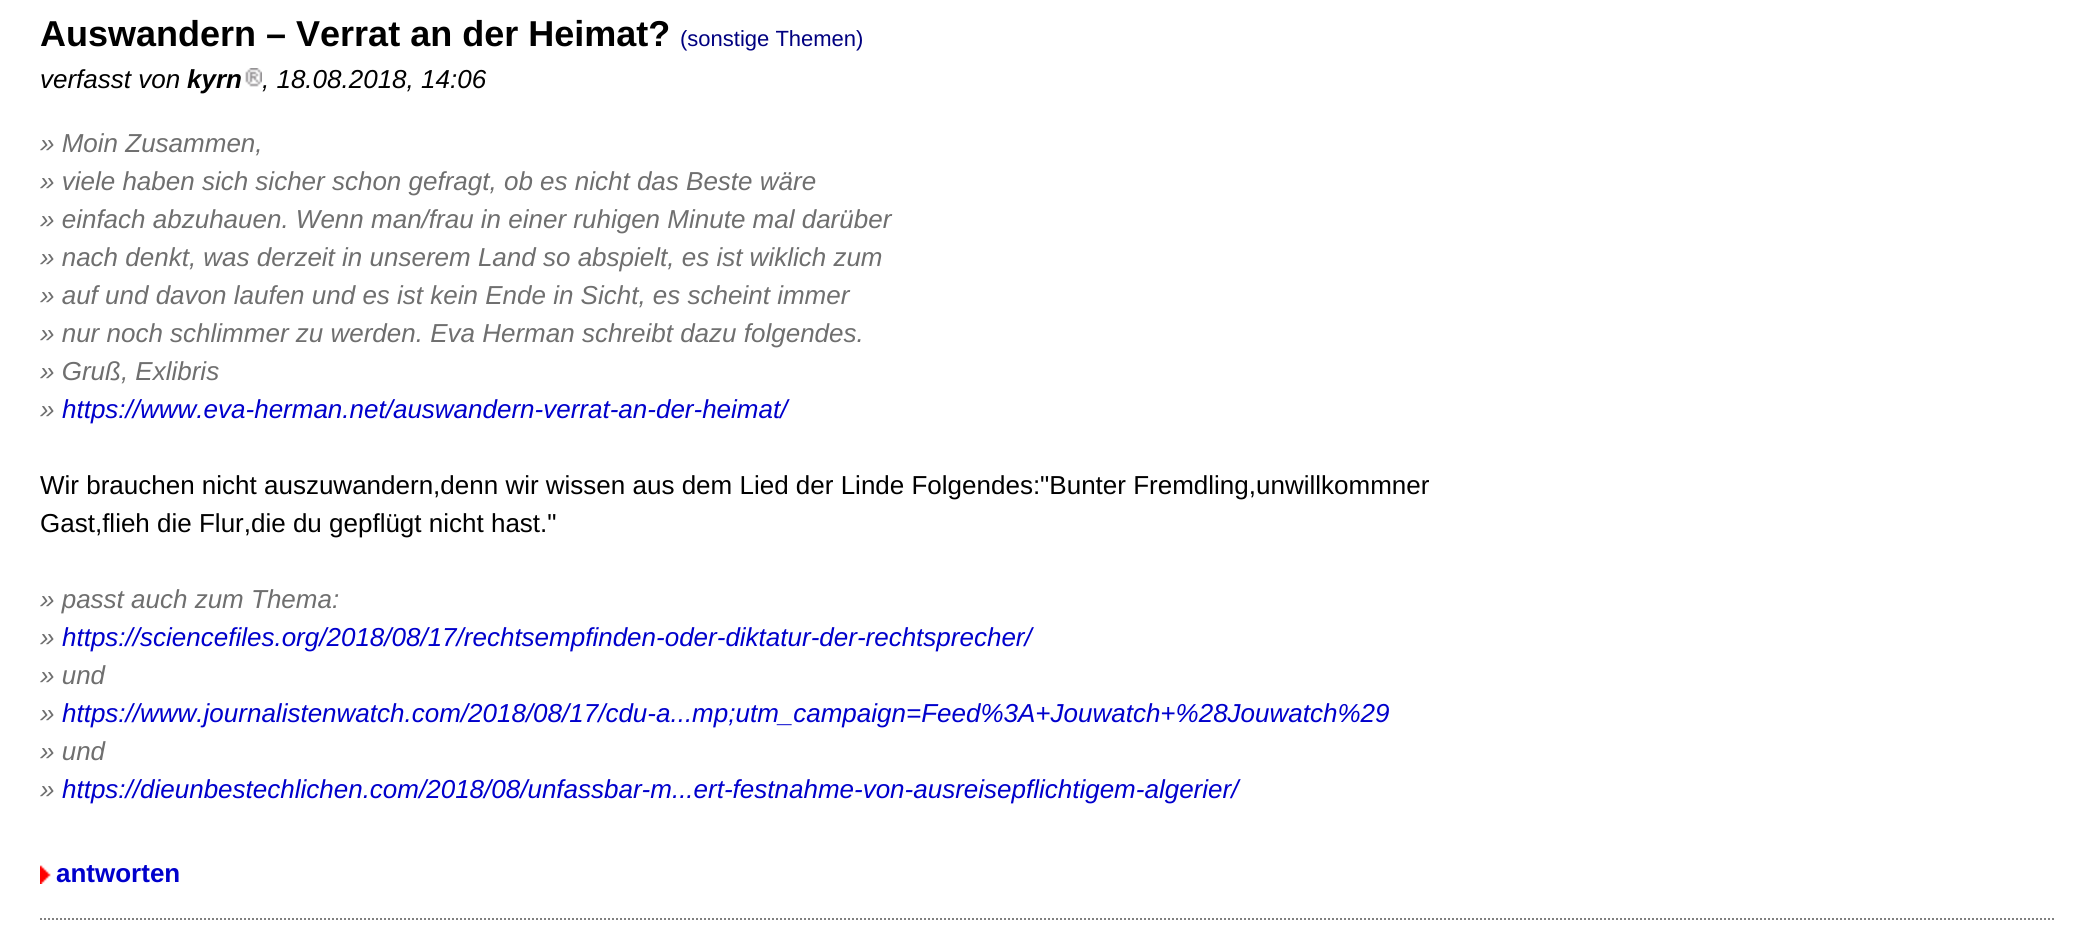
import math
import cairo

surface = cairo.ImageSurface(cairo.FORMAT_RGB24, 2094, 942)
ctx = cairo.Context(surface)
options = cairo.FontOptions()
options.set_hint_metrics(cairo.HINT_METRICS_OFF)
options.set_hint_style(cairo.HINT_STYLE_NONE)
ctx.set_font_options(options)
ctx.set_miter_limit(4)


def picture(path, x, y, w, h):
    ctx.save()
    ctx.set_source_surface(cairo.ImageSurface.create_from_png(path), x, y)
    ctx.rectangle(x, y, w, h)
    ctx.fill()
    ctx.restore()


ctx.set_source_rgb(1, 1, 1)
ctx.paint()
ctx.select_font_face("Liberation Sans", cairo.FONT_SLANT_NORMAL, cairo.FONT_WEIGHT_BOLD)
ctx.set_font_size(36)
ctx.set_source_rgb(0, 0, 0)
ctx.move_to(40, 46)
ctx.show_text("Auswandern – Verrat an der Heimat?")
ctx.select_font_face("Liberation Sans")
ctx.set_font_size(22)
ctx.set_source_rgb(0, 0, 0.502)
ctx.move_to(680, 46)
ctx.show_text("(sonstige Themen)")
ctx.select_font_face("Liberation Sans", cairo.FONT_SLANT_ITALIC)
ctx.set_font_size(26)
ctx.set_source_rgb(0, 0, 0)
ctx.move_to(40, 88)
ctx.show_text("verfasst von")
ctx.select_font_face("Liberation Sans", cairo.FONT_SLANT_ITALIC, cairo.FONT_WEIGHT_BOLD)
ctx.move_to(187, 88)
ctx.show_text("kyrn")
picture("img1.png", 245, 68, 17, 19)
ctx.select_font_face("Liberation Sans", cairo.FONT_SLANT_ITALIC)
ctx.move_to(262, 88)
ctx.show_text(", 18.08.2018, 14:06")
ctx.set_source_rgb(0.435, 0.435, 0.435)
ctx.move_to(40, 152)
ctx.show_text("» Moin Zusammen,")
ctx.move_to(40, 190)
ctx.show_text("» viele haben sich sicher schon gefragt, ob es nicht das Beste wäre")
ctx.move_to(40, 228)
ctx.show_text("» einfach abzuhauen. Wenn man/frau in einer ruhigen Minute mal darüber")
ctx.move_to(40, 266)
ctx.show_text("» nach denkt, was derzeit in unserem Land so abspielt, es ist wiklich zum")
ctx.move_to(40, 304)
ctx.show_text("» auf und davon laufen und es ist kein Ende in Sicht, es scheint immer")
ctx.move_to(40, 342)
ctx.show_text("» nur noch schlimmer zu werden. Eva Herman schreibt dazu folgendes.")
ctx.move_to(40, 380)
ctx.show_text("» Gruß, Exlibris")
ctx.move_to(40, 418)
ctx.show_text("»")
ctx.set_source_rgb(0, 0, 0.8)
ctx.move_to(62, 418)
ctx.show_text("https://www.eva-herman.net/auswandern-verrat-an-der-heimat/")
ctx.select_font_face("Liberation Sans")
ctx.set_source_rgb(0, 0, 0)
ctx.move_to(40, 494)
ctx.show_text("Wir brauchen nicht auszuwandern,denn wir wissen aus dem Lied der Linde Folgendes:\"Bunter Fremdling,unwillkommner")
ctx.move_to(40, 532)
ctx.show_text("Gast,flieh die Flur,die du gepflügt nicht hast.\"")
ctx.select_font_face("Liberation Sans", cairo.FONT_SLANT_ITALIC)
ctx.set_source_rgb(0.435, 0.435, 0.435)
ctx.move_to(40, 608)
ctx.show_text("» passt auch zum Thema:")
ctx.move_to(40, 646)
ctx.show_text("»")
ctx.set_source_rgb(0, 0, 0.8)
ctx.move_to(62, 646)
ctx.show_text("https://sciencefiles.org/2018/08/17/rechtsempfinden-oder-diktatur-der-rechtsprecher/")
ctx.set_source_rgb(0.435, 0.435, 0.435)
ctx.move_to(40, 684)
ctx.show_text("» und")
ctx.move_to(40, 722)
ctx.show_text("»")
ctx.set_source_rgb(0, 0, 0.8)
ctx.move_to(62, 722)
ctx.show_text("https://www.journalistenwatch.com/2018/08/17/cdu-a...mp;utm_campaign=Feed%3A+Jouwatch+%28Jouwatch%29")
ctx.set_source_rgb(0.435, 0.435, 0.435)
ctx.move_to(40, 760)
ctx.show_text("» und")
ctx.move_to(40, 798)
ctx.show_text("»")
ctx.set_source_rgb(0, 0, 0.8)
ctx.move_to(62, 798)
ctx.show_text("https://dieunbestechlichen.com/2018/08/unfassbar-m...ert-festnahme-von-ausreisepflichtigem-algerier/")
picture("img2.png", 40, 865, 11, 19)
ctx.select_font_face("Liberation Sans", cairo.FONT_SLANT_NORMAL, cairo.FONT_WEIGHT_BOLD)
ctx.move_to(56, 882)
ctx.show_text("antworten")
ctx.new_path()
ctx.move_to(40, 919)
ctx.line_to(2054, 919)
ctx.set_source_rgb(0.502, 0.502, 0.502)
ctx.set_dash([2, 2])
ctx.stroke()
surface.write_to_png("page.png")
